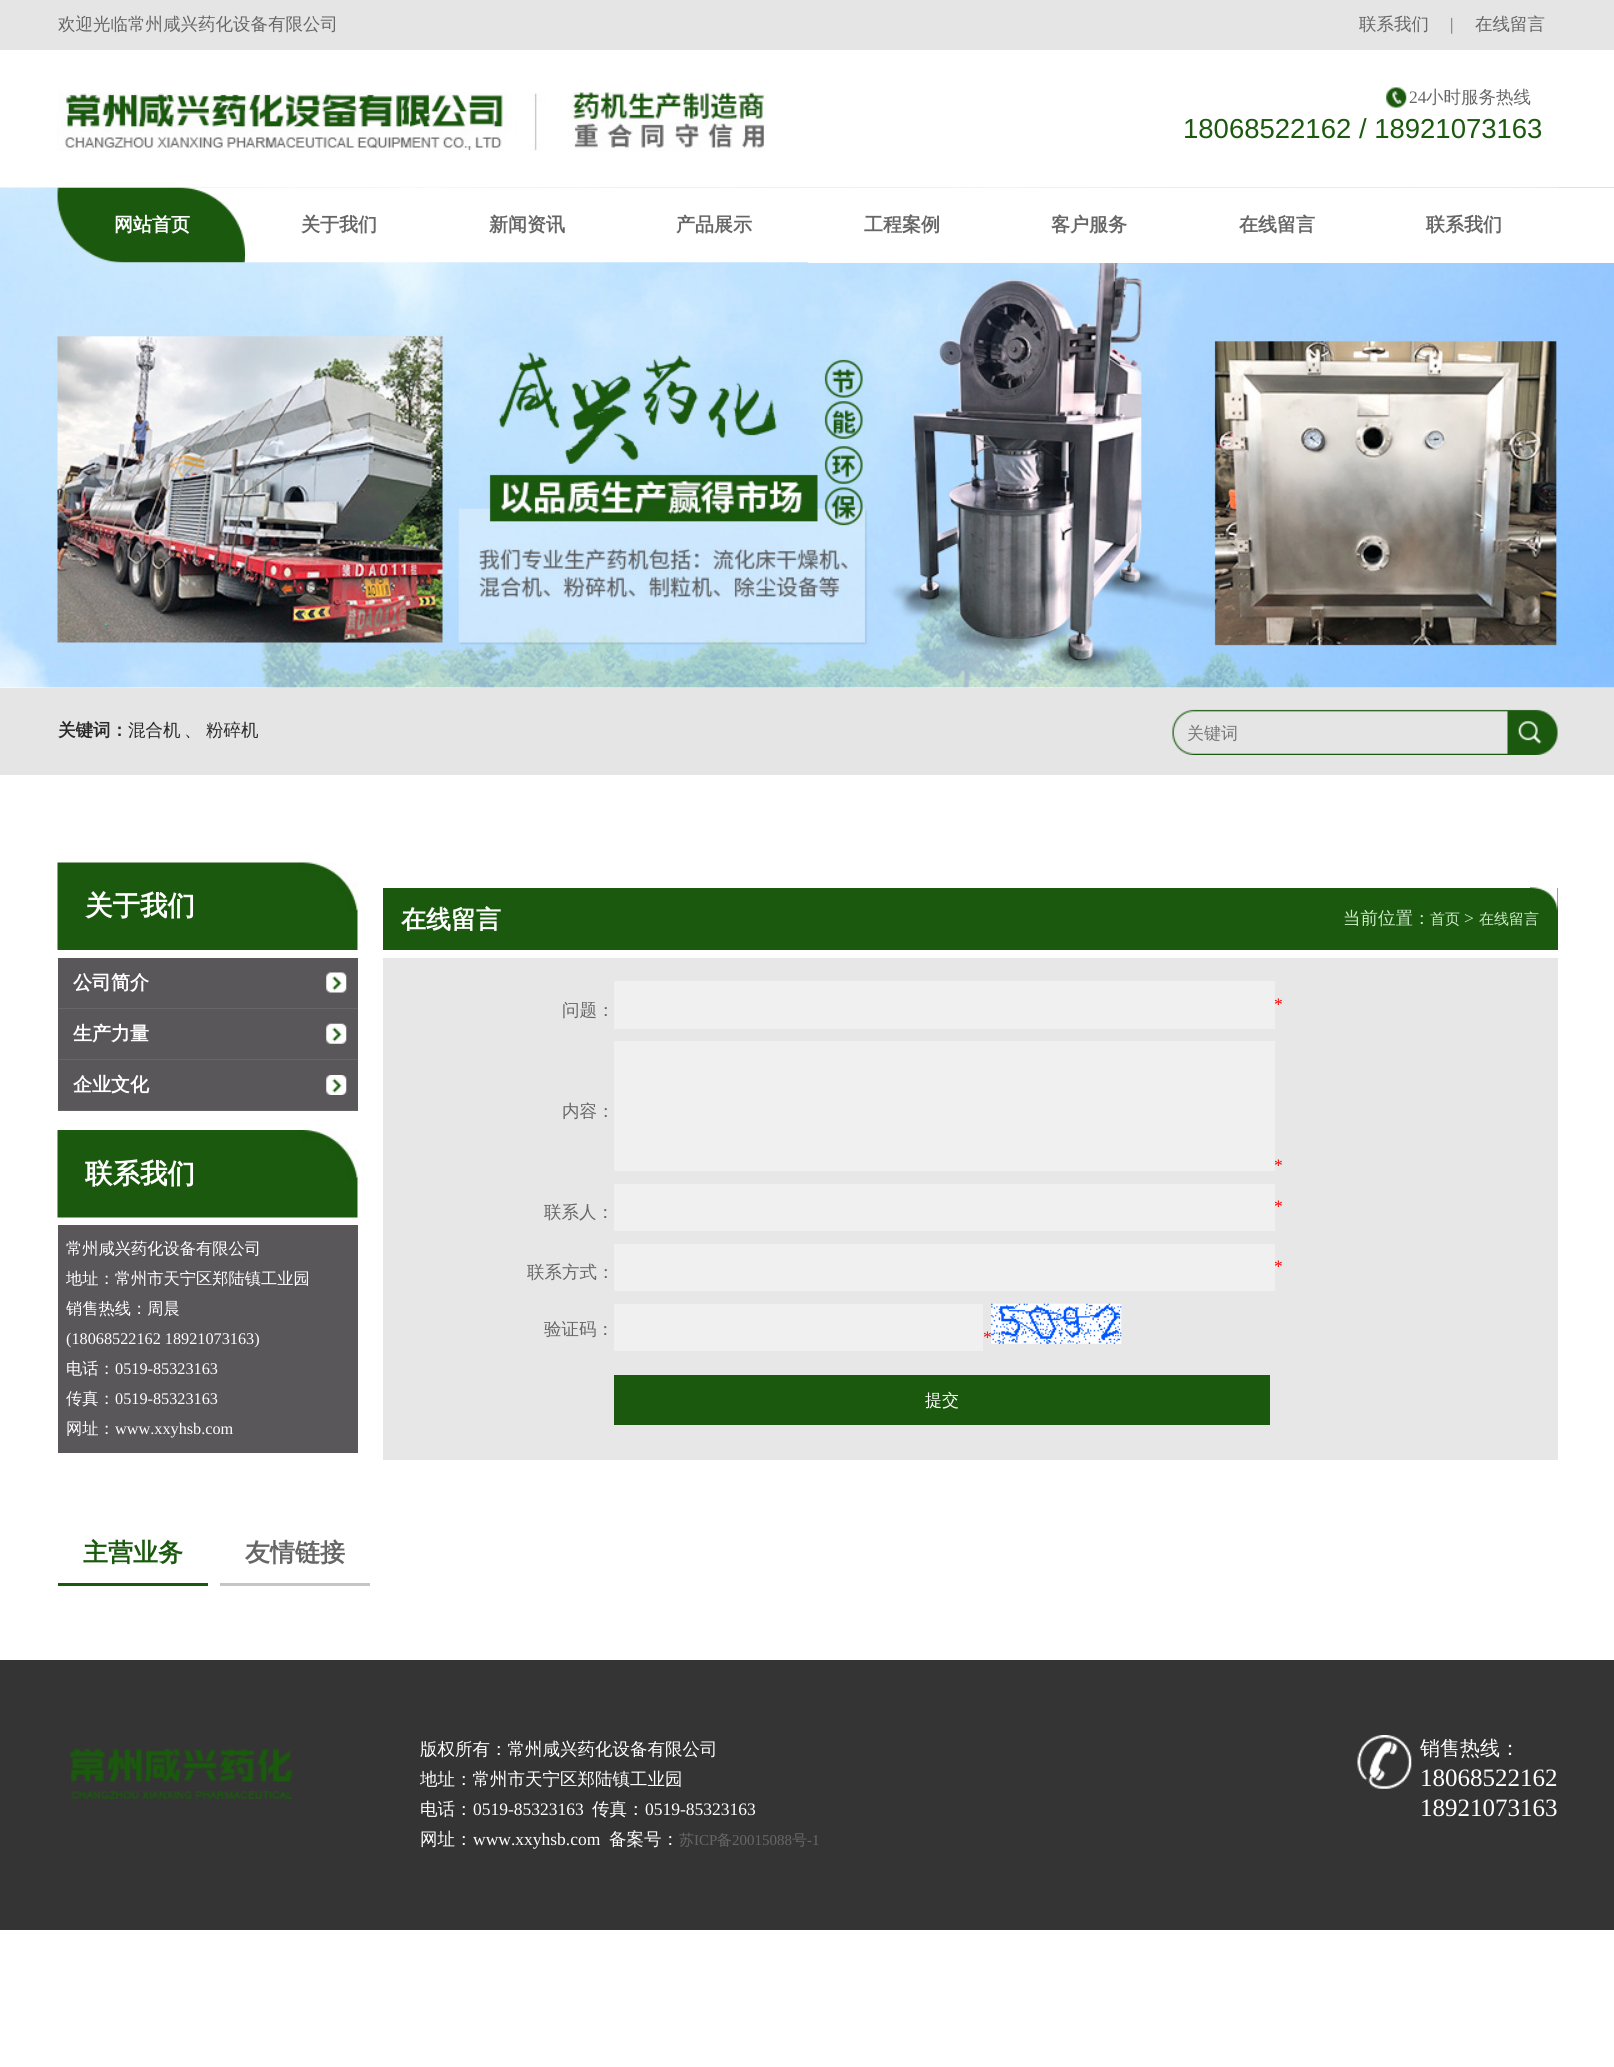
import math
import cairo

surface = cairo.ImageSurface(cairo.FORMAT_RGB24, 1614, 2067)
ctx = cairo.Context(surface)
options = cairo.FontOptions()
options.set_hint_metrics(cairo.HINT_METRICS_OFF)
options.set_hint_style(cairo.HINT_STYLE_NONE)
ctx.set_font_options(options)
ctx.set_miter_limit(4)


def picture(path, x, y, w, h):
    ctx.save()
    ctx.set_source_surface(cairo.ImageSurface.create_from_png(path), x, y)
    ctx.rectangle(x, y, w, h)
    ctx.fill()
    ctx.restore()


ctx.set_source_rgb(1, 1, 1)
ctx.paint()
ctx.set_source_rgb(0.898, 0.898, 0.898)
ctx.rectangle(0, 0, 1614, 50)
ctx.fill()
ctx.select_font_face("WenQuanYi Zen Hei Medium")
ctx.set_font_size(17.5)
ctx.set_source_rgb(0.4, 0.4, 0.4)
ctx.move_to(58, 30)
ctx.show_text("欢迎光临常州咸兴药化设备有限公司")
ctx.move_to(1359, 30)
ctx.show_text("联系我们")
ctx.select_font_face("Liberation Serif")
ctx.move_to(1450, 30)
ctx.show_text("|")
ctx.select_font_face("WenQuanYi Zen Hei Medium")
ctx.move_to(1475, 30)
ctx.show_text("在线留言")
picture("img1.png", 57, 92, 709, 59)
picture("img2.png", 1386, 87, 21, 21)
ctx.select_font_face("Liberation Serif")
ctx.move_to(1409, 103)
ctx.show_text("24")
ctx.select_font_face("WenQuanYi Zen Hei Medium")
ctx.move_to(1426, 103)
ctx.show_text("小时服务热线")
ctx.select_font_face("Liberation Sans")
ctx.set_font_size(27.5)
ctx.set_source_rgb(0.102, 0.349, 0.055)
ctx.move_to(1183, 138)
ctx.show_text("18068522162 / 18921073163")
picture("img3.png", 0, 187, 1614, 501)
ctx.set_source_rgb(1, 1, 1)
ctx.rectangle(808, 188, 806, 75)
ctx.fill()
picture("img4.png", 57, 187, 1501, 76)
picture("img5.png", 57, 187, 188, 76)
ctx.select_font_face("WenQuanYi Zen Hei", cairo.FONT_SLANT_NORMAL, cairo.FONT_WEIGHT_BOLD)
ctx.set_font_size(19)
ctx.move_to(114, 231)
ctx.show_text("网站首页")
ctx.set_source_rgb(0.4, 0.4, 0.4)
ctx.move_to(301, 231)
ctx.show_text("关于我们")
ctx.move_to(489, 231)
ctx.show_text("新闻资讯")
ctx.move_to(676, 231)
ctx.show_text("产品展示")
ctx.move_to(864, 231)
ctx.show_text("工程案例")
ctx.move_to(1051, 231)
ctx.show_text("客户服务")
ctx.move_to(1239, 231)
ctx.show_text("在线留言")
ctx.move_to(1426, 231)
ctx.show_text("联系我们")
ctx.set_source_rgb(0.898, 0.898, 0.898)
ctx.rectangle(0, 688, 1614, 87)
ctx.fill()
ctx.set_font_size(17.5)
ctx.set_source_rgb(0.157, 0.157, 0.157)
ctx.move_to(58, 736)
ctx.show_text("关键词：")
ctx.select_font_face("WenQuanYi Zen Hei Medium")
ctx.move_to(128, 736)
ctx.show_text("混合机")
ctx.move_to(184, 736)
ctx.show_text("、")
ctx.move_to(206, 736)
ctx.show_text("粉碎机")
picture("img6.png", 1172, 709, 386, 46)
ctx.set_font_size(17)
ctx.set_source_rgb(0.459, 0.459, 0.459)
ctx.move_to(1187, 739)
ctx.show_text("关键词")
picture("img7.png", 57, 862, 301, 88)
ctx.select_font_face("WenQuanYi Zen Hei", cairo.FONT_SLANT_NORMAL, cairo.FONT_WEIGHT_BOLD)
ctx.set_font_size(27.5)
ctx.set_source_rgb(1, 1, 1)
ctx.move_to(85, 915)
ctx.show_text("关于我们")
ctx.set_source_rgb(0.353, 0.341, 0.353)
ctx.rectangle(58, 958, 300, 152)
ctx.fill()
picture("img8.png", 326, 972, 21, 21)
ctx.set_source_rgb(0.404, 0.4, 0.404)
ctx.rectangle(58, 1008, 300, 1)
ctx.fill()
ctx.set_font_size(19)
ctx.set_source_rgb(1, 1, 1)
ctx.move_to(73, 989)
ctx.show_text("公司简介")
picture("img9.png", 326, 1023, 21, 21)
ctx.set_source_rgb(0.404, 0.4, 0.404)
ctx.rectangle(58, 1059, 300, 1)
ctx.fill()
ctx.set_source_rgb(1, 1, 1)
ctx.move_to(73, 1040)
ctx.show_text("生产力量")
picture("img10.png", 326, 1075, 21, 20)
ctx.set_source_rgb(0.404, 0.4, 0.404)
ctx.rectangle(58, 1110, 300, 1)
ctx.fill()
ctx.set_source_rgb(1, 1, 1)
ctx.move_to(73, 1091)
ctx.show_text("企业文化")
picture("img11.png", 57, 1130, 301, 88)
ctx.set_font_size(27.5)
ctx.move_to(85, 1183)
ctx.show_text("联系我们")
ctx.set_source_rgb(0.353, 0.341, 0.353)
ctx.rectangle(58, 1225, 300, 228)
ctx.fill()
ctx.select_font_face("WenQuanYi Zen Hei Medium")
ctx.set_font_size(16.25)
ctx.set_source_rgb(1, 1, 1)
ctx.move_to(66, 1254)
ctx.show_text("常州咸兴药化设备有限公司")
ctx.move_to(66, 1284)
ctx.show_text("地址：常州市天宁区郑陆镇工业园")
ctx.move_to(66, 1314)
ctx.show_text("销售热线：周晨")
ctx.select_font_face("Liberation Serif")
ctx.move_to(66, 1344)
ctx.show_text("(18068522162 18921073163)")
ctx.select_font_face("WenQuanYi Zen Hei Medium")
ctx.move_to(66, 1374)
ctx.show_text("电话：")
ctx.select_font_face("Liberation Serif")
ctx.move_to(115, 1374)
ctx.show_text("0519-85323163")
ctx.select_font_face("WenQuanYi Zen Hei Medium")
ctx.move_to(66, 1404)
ctx.show_text("传真：")
ctx.select_font_face("Liberation Serif")
ctx.move_to(115, 1404)
ctx.show_text("0519-85323163")
ctx.select_font_face("WenQuanYi Zen Hei Medium")
ctx.move_to(66, 1434)
ctx.show_text("网址：")
ctx.select_font_face("Liberation Serif")
ctx.move_to(115, 1434)
ctx.show_text("www.xxyhsb.com")
ctx.set_source_rgb(0.102, 0.349, 0.055)
ctx.rectangle(383, 888, 1175, 62)
ctx.fill()
picture("img12.png", 1530, 887, 28, 24)
ctx.select_font_face("WenQuanYi Zen Hei", cairo.FONT_SLANT_NORMAL, cairo.FONT_WEIGHT_BOLD)
ctx.set_font_size(25)
ctx.set_source_rgb(1, 1, 1)
ctx.move_to(401, 928)
ctx.show_text("在线留言")
ctx.select_font_face("WenQuanYi Zen Hei Medium")
ctx.set_font_size(17.5)
ctx.set_source_rgb(0.82, 0.929, 0.8)
ctx.move_to(1343, 924)
ctx.show_text("当前位置：")
ctx.set_font_size(15)
ctx.move_to(1430, 924)
ctx.show_text("首页")
ctx.select_font_face("Liberation Serif")
ctx.set_font_size(17.5)
ctx.move_to(1464, 924)
ctx.show_text(">")
ctx.select_font_face("WenQuanYi Zen Hei Medium")
ctx.set_font_size(15)
ctx.move_to(1479, 924)
ctx.show_text("在线留言")
ctx.set_source_rgb(0.906, 0.906, 0.906)
ctx.rectangle(383, 958, 1175, 502)
ctx.fill()
ctx.set_font_size(17.5)
ctx.set_source_rgb(0.4, 0.4, 0.4)
ctx.move_to(562, 1016)
ctx.show_text("问题：")
ctx.set_source_rgb(0.941, 0.941, 0.941)
ctx.rectangle(614, 981, 661, 48)
ctx.fill()
ctx.select_font_face("Liberation Serif")
ctx.set_source_rgb(1, 0, 0)
ctx.move_to(1274, 1010)
ctx.show_text("*")
ctx.select_font_face("WenQuanYi Zen Hei Medium")
ctx.set_source_rgb(0.4, 0.4, 0.4)
ctx.move_to(562, 1117)
ctx.show_text("内容：")
ctx.set_source_rgb(0.941, 0.941, 0.941)
ctx.rectangle(614, 1041, 661, 130)
ctx.fill()
ctx.select_font_face("Liberation Serif")
ctx.set_source_rgb(1, 0, 0)
ctx.move_to(1274, 1171)
ctx.show_text("*")
ctx.select_font_face("WenQuanYi Zen Hei Medium")
ctx.set_source_rgb(0.4, 0.4, 0.4)
ctx.move_to(544, 1218)
ctx.show_text("联系人：")
ctx.set_source_rgb(0.941, 0.941, 0.941)
ctx.rectangle(614, 1184, 661, 47)
ctx.fill()
ctx.select_font_face("Liberation Serif")
ctx.set_source_rgb(1, 0, 0)
ctx.move_to(1274, 1212)
ctx.show_text("*")
ctx.select_font_face("WenQuanYi Zen Hei Medium")
ctx.set_source_rgb(0.4, 0.4, 0.4)
ctx.move_to(527, 1278)
ctx.show_text("联系方式：")
ctx.set_source_rgb(0.941, 0.941, 0.941)
ctx.rectangle(614, 1244, 661, 47)
ctx.fill()
ctx.select_font_face("Liberation Serif")
ctx.set_source_rgb(1, 0, 0)
ctx.move_to(1274, 1272)
ctx.show_text("*")
ctx.select_font_face("WenQuanYi Zen Hei Medium")
ctx.set_source_rgb(0.4, 0.4, 0.4)
ctx.move_to(544, 1335)
ctx.show_text("验证码：")
ctx.set_source_rgb(0.941, 0.941, 0.941)
ctx.rectangle(614, 1304, 369, 47)
ctx.fill()
ctx.select_font_face("Liberation Serif")
ctx.set_source_rgb(1, 0, 0)
ctx.move_to(983, 1343)
ctx.show_text("*")
picture("img13.png", 991, 1303, 131, 41)
ctx.set_source_rgb(0.102, 0.349, 0.055)
ctx.rectangle(614, 1375, 656, 50)
ctx.fill()
ctx.select_font_face("WenQuanYi Zen Hei Medium")
ctx.set_font_size(17)
ctx.set_source_rgb(1, 1, 1)
ctx.move_to(925, 1406)
ctx.show_text("提交")
ctx.set_source_rgb(0.102, 0.349, 0.055)
ctx.rectangle(58, 1583, 150, 3)
ctx.fill()
ctx.select_font_face("WenQuanYi Zen Hei", cairo.FONT_SLANT_NORMAL, cairo.FONT_WEIGHT_BOLD)
ctx.set_font_size(25)
ctx.move_to(83, 1561)
ctx.show_text("主营业务")
ctx.set_source_rgb(0.773, 0.773, 0.773)
ctx.rectangle(220, 1583, 150, 3)
ctx.fill()
ctx.set_source_rgb(0.4, 0.4, 0.4)
ctx.move_to(245, 1561)
ctx.show_text("友情链接")
ctx.set_source_rgb(0.204, 0.204, 0.204)
ctx.rectangle(0, 1660, 1614, 270)
ctx.fill()
picture("img14.png", 70, 1748, 223, 51)
ctx.select_font_face("WenQuanYi Zen Hei Medium")
ctx.set_font_size(17.5)
ctx.set_source_rgb(1, 1, 1)
ctx.move_to(420, 1755)
ctx.show_text("版权所有：常州咸兴药化设备有限公司")
ctx.move_to(420, 1785)
ctx.show_text("地址：常州市天宁区郑陆镇工业园")
ctx.move_to(420, 1815)
ctx.show_text("电话：")
ctx.select_font_face("Liberation Serif")
ctx.move_to(473, 1815)
ctx.show_text("0519-85323163")
ctx.select_font_face("WenQuanYi Zen Hei Medium")
ctx.move_to(592, 1815)
ctx.show_text("传真：")
ctx.select_font_face("Liberation Serif")
ctx.move_to(645, 1815)
ctx.show_text("0519-85323163")
ctx.select_font_face("WenQuanYi Zen Hei Medium")
ctx.move_to(420, 1845)
ctx.show_text("网址：")
ctx.select_font_face("Liberation Serif")
ctx.move_to(473, 1845)
ctx.show_text("www.xxyhsb.com")
ctx.select_font_face("WenQuanYi Zen Hei Medium")
ctx.move_to(609, 1845)
ctx.show_text("备案号：")
ctx.set_font_size(15)
ctx.set_source_rgb(0.4, 0.4, 0.4)
ctx.move_to(679, 1845)
ctx.show_text("苏")
ctx.select_font_face("Liberation Serif")
ctx.move_to(694, 1845)
ctx.show_text("ICP")
ctx.select_font_face("WenQuanYi Zen Hei Medium")
ctx.move_to(717, 1845)
ctx.show_text("备")
ctx.select_font_face("Liberation Serif")
ctx.move_to(732, 1845)
ctx.show_text("20015088")
ctx.select_font_face("WenQuanYi Zen Hei Medium")
ctx.move_to(792, 1845)
ctx.show_text("号")
ctx.select_font_face("Liberation Serif")
ctx.move_to(807, 1845)
ctx.show_text("-1")
picture("img15.png", 1357, 1735, 55, 54)
ctx.select_font_face("WenQuanYi Zen Hei Medium")
ctx.set_font_size(20)
ctx.set_source_rgb(1, 1, 1)
ctx.move_to(1420, 1755)
ctx.show_text("销售热线：")
ctx.select_font_face("Liberation Serif")
ctx.set_font_size(25)
ctx.move_to(1420, 1786)
ctx.show_text("18068522162")
ctx.move_to(1420, 1816)
ctx.show_text("18921073163")
surface.write_to_png("page.png")
